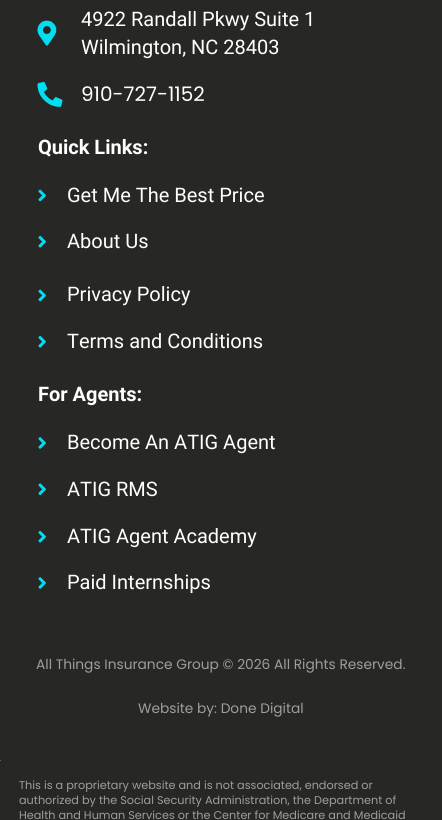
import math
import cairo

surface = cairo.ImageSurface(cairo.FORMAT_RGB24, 442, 820)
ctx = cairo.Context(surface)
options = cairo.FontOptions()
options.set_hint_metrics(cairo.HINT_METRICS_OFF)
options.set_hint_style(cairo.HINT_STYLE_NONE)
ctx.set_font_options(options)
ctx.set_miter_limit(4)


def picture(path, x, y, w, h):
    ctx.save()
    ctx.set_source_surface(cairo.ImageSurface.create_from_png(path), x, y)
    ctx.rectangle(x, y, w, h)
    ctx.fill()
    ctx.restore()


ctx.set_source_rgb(1, 1, 1)
ctx.paint()
ctx.set_source_rgb(0.153, 0.153, 0.145)
ctx.rectangle(0, 0, 442, 760)
ctx.fill()
picture("img1.png", 37, 20, 20, 26)
ctx.select_font_face("Roboto")
ctx.set_font_size(20)
ctx.set_source_rgb(1, 1, 1)
ctx.move_to(81, 26)
ctx.show_text("4922 Randall Pkwy Suite 1")
ctx.move_to(81, 54)
ctx.show_text("Wilmington, NC 28403")
picture("img2.png", 37, 81, 26, 26)
ctx.select_font_face("Poppins")
ctx.move_to(81, 101)
ctx.show_text("910-727-1152")
ctx.select_font_face("Roboto", cairo.FONT_SLANT_NORMAL, cairo.FONT_WEIGHT_BOLD)
ctx.move_to(38, 154)
ctx.show_text("Quick Links:")
picture("img3.png", 38, 189, 8, 13)
ctx.select_font_face("Roboto")
ctx.move_to(67, 202)
ctx.show_text("Get Me The Best Price")
picture("img4.png", 38, 235, 8, 13)
ctx.move_to(67, 248)
ctx.show_text("About Us")
picture("img3.png", 38, 289, 8, 13)
ctx.move_to(67, 301)
ctx.show_text("Privacy Policy")
picture("img4.png", 38, 335, 8, 13)
ctx.move_to(67, 348)
ctx.show_text("Terms and Conditions")
ctx.select_font_face("Roboto", cairo.FONT_SLANT_NORMAL, cairo.FONT_WEIGHT_BOLD)
ctx.move_to(38, 401)
ctx.show_text("For Agents:")
picture("img5.png", 38, 437, 8, 12)
ctx.select_font_face("Roboto")
ctx.move_to(67, 449)
ctx.show_text("Become An ATIG Agent")
picture("img6.png", 38, 483, 8, 12)
ctx.move_to(67, 496)
ctx.show_text("ATIG RMS")
picture("img4.png", 38, 530, 8, 13)
ctx.move_to(67, 543)
ctx.show_text("ATIG Agent Academy")
picture("img5.png", 38, 577, 8, 12)
ctx.move_to(67, 589)
ctx.show_text("Paid Internships")
ctx.select_font_face("Poppins")
ctx.set_font_size(13.75)
ctx.set_source_rgb(0.62, 0.62, 0.616)
ctx.move_to(36, 669)
ctx.show_text("All Things Insurance Group © 2026 All Rights Reserved.")
ctx.move_to(138, 713)
ctx.show_text("Website by: Done Digital")
ctx.set_source_rgb(0.153, 0.153, 0.145)
ctx.new_path()
ctx.move_to(1, 760)
ctx.line_to(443, 760)
ctx.line_to(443, 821)
ctx.line_to(0, 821)
ctx.line_to(0, 761)
ctx.curve_to(0, 760.5, 0.5, 760, 1, 760)
ctx.close_path()
ctx.fill()
ctx.set_font_size(11.25)
ctx.set_source_rgb(0.62, 0.62, 0.616)
ctx.move_to(19, 789)
ctx.show_text("This is a proprietary website and is not associated, endorsed or")
ctx.move_to(19, 804)
ctx.show_text("authorized by the Social Security Administration, the Department of")
ctx.move_to(19, 819)
ctx.show_text("Health and Human Services or the Center for Medicare and Medicaid")
surface.write_to_png("page.png")
